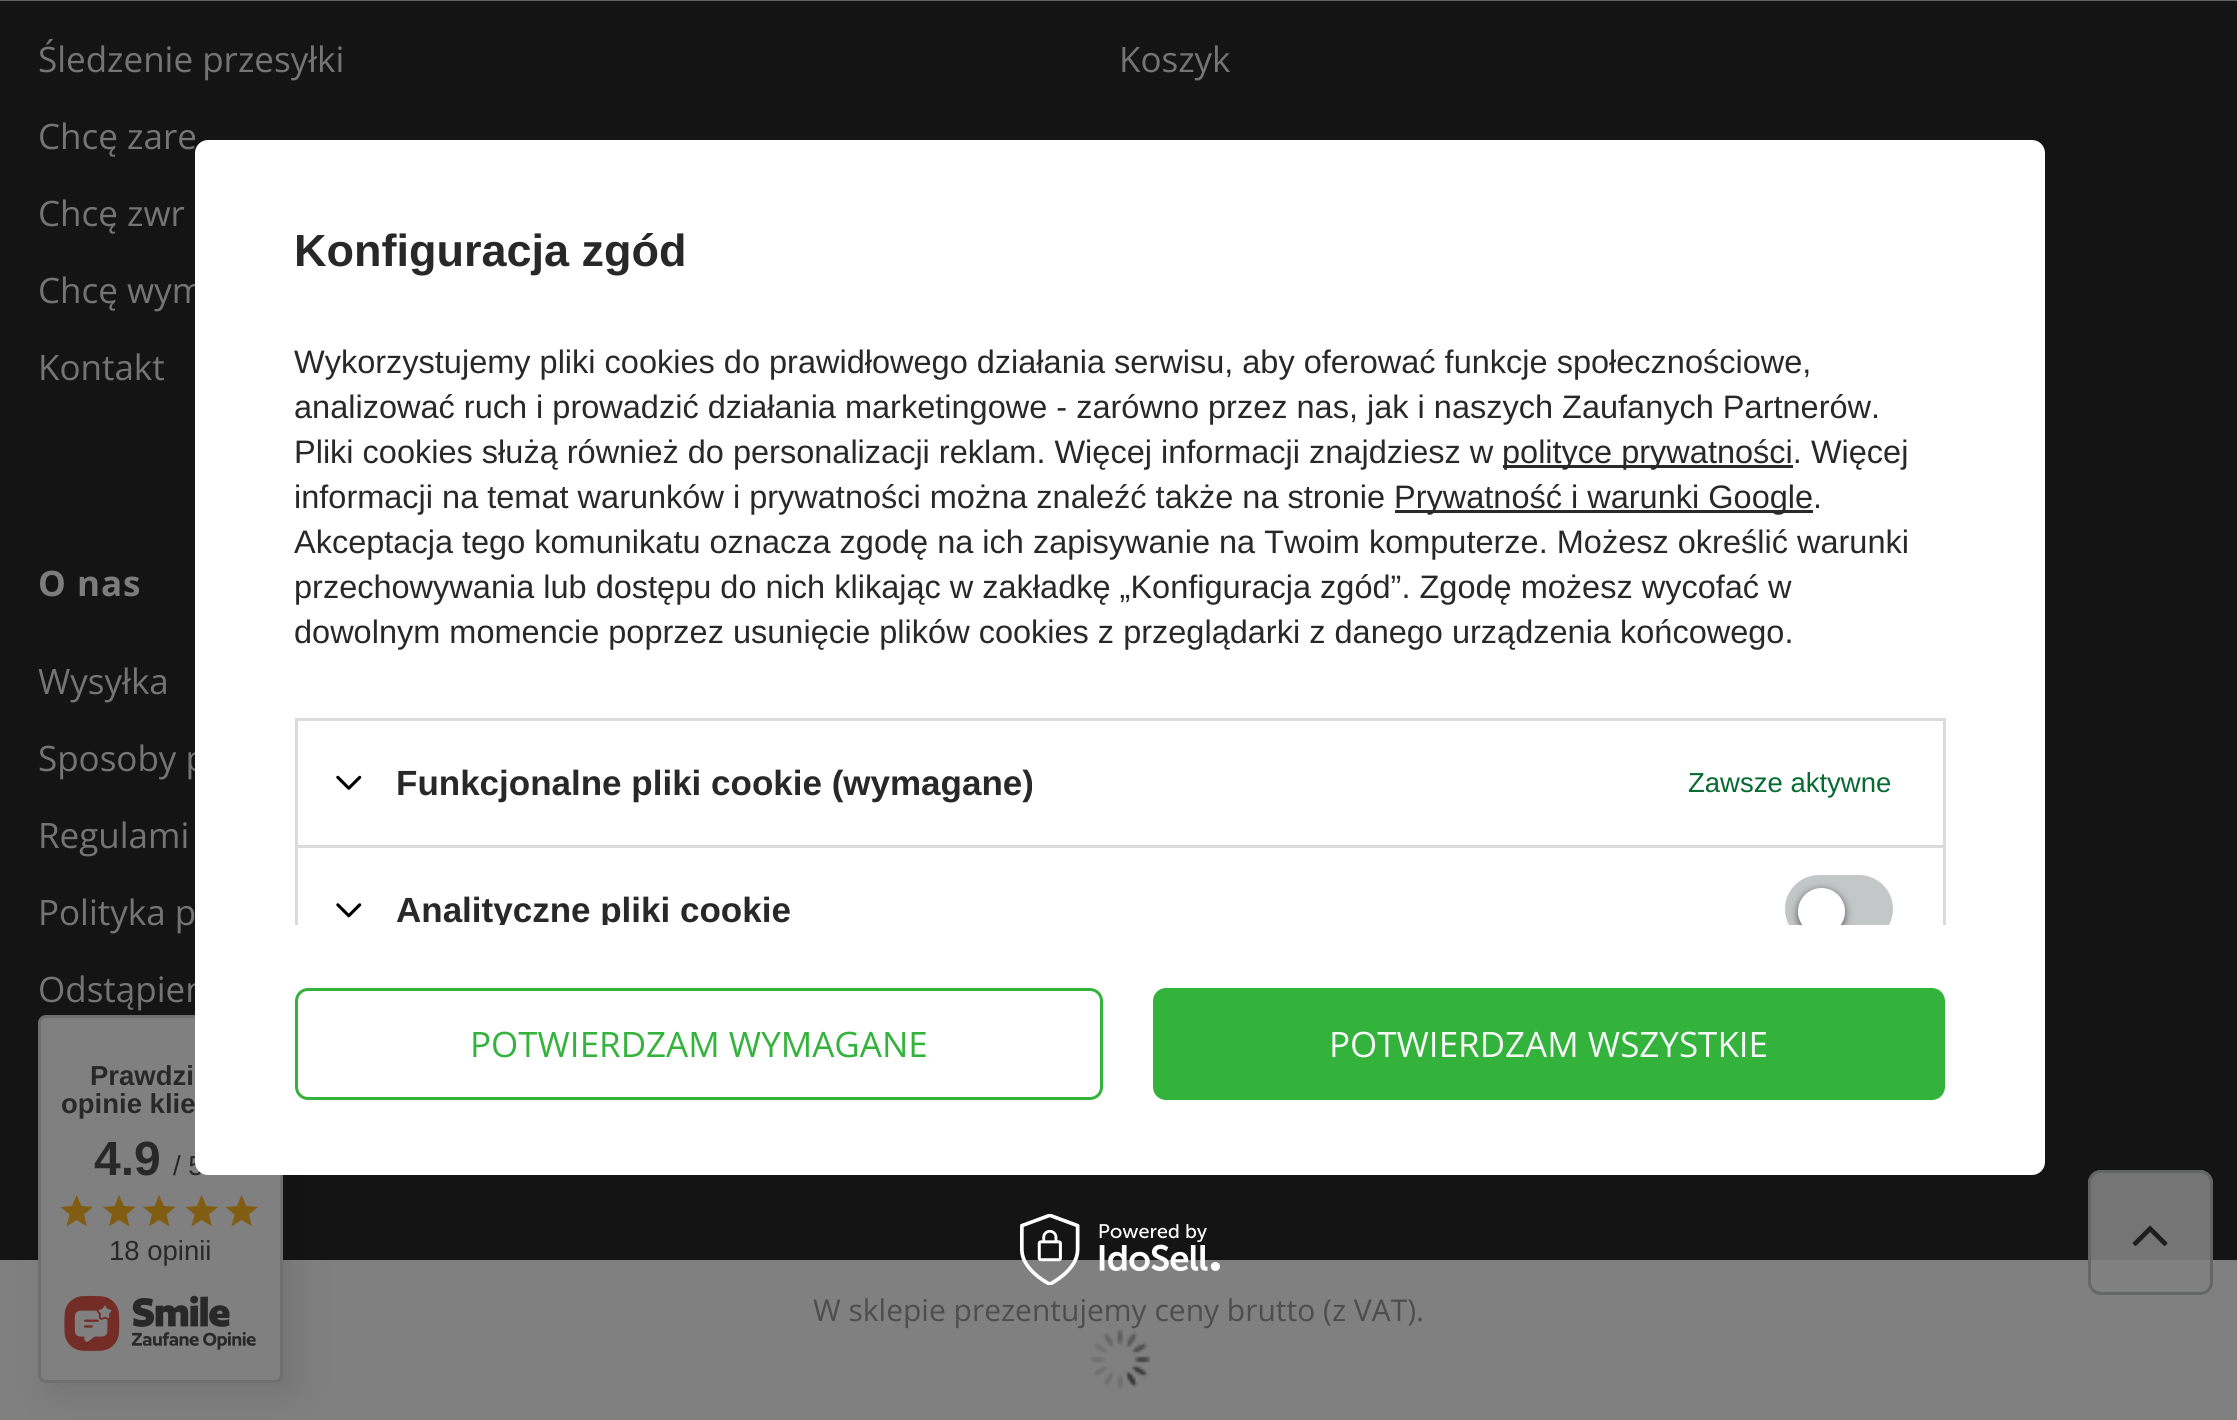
import math
import cairo

surface = cairo.ImageSurface(cairo.FORMAT_RGB24, 2237, 1420)
ctx = cairo.Context(surface)
options = cairo.FontOptions()
options.set_hint_metrics(cairo.HINT_METRICS_OFF)
options.set_hint_style(cairo.HINT_STYLE_NONE)
ctx.set_font_options(options)
ctx.set_miter_limit(4)


def spaced_text(x, y, s, letter, word):
    ctx.move_to(x, y)
    for ch in s:
        ctx.show_text(ch)
        ctx.rel_move_to(letter + word * (ch == ' '), 0)


def round_rect(x, y, w, h, r):
    ctx.new_sub_path()
    for i, (u, v) in enumerate([(x + w - r, y + h - r), (x + r, y + h - r), (x + r, y + r), (x + w - r, y + r)]):
        ctx.arc(u, v, r, i * math.pi / 2, (i + 1) * math.pi / 2)
    ctx.close_path()


def shadow(x, y, w, h, r, blur, alpha):
    ctx.push_group_with_content(cairo.CONTENT_ALPHA)
    ctx.set_operator(cairo.OPERATOR_SOURCE)
    for i in range(15, -16, -2):
        e = blur * i / 6
        if min(w, h) + 2 * e > 0:
            ctx.set_source_rgba(0, 0, 0, alpha * math.erfc((i - 1) / 8.5) / 2)
            round_rect(x - e, y - e, w + 2 * e, h + 2 * e, max(0, min(r + e + blur * .6, min(w, h) / 2 + e)))
            ctx.fill()
    ctx.mask(ctx.pop_group())


def picture(path, x, y, w, h):
    ctx.save()
    ctx.set_source_surface(cairo.ImageSurface.create_from_png(path), x, y)
    ctx.rectangle(x, y, w, h)
    ctx.fill()
    ctx.restore()


ctx.set_source_rgb(0.502, 0.502, 0.502)
ctx.paint()
ctx.set_source_rgb(0.384, 0.392, 0.392)
ctx.rectangle(0, 0, 2237, 1)
ctx.fill()
ctx.set_source_rgb(0.082, 0.082, 0.082)
ctx.rectangle(0, 1, 2237, 1259)
ctx.fill()
ctx.select_font_face("Open Sans")
ctx.set_font_size(35)
ctx.set_source_rgb(0.455, 0.455, 0.455)
ctx.move_to(38, 72)
ctx.show_text("Śledzenie przesyłki")
ctx.move_to(38, 149)
ctx.show_text("Chcę zare")
ctx.move_to(38, 226)
ctx.show_text("Chcę zwr")
ctx.move_to(38, 303)
ctx.show_text("Chcę wym")
ctx.move_to(38, 380)
ctx.show_text("Kontakt")
ctx.move_to(1119, 72)
ctx.show_text("Koszyk")
ctx.select_font_face("Open Sans", cairo.FONT_SLANT_NORMAL, cairo.FONT_WEIGHT_BOLD)
ctx.set_source_rgb(0.486, 0.486, 0.486)
spaced_text(38, 596, "O nas", 1, 0)
ctx.select_font_face("Open Sans")
ctx.set_source_rgb(0.455, 0.455, 0.455)
ctx.move_to(38, 694)
ctx.show_text("Wysyłka")
ctx.move_to(38, 771)
ctx.show_text("Sposoby p")
ctx.move_to(38, 848)
ctx.show_text("Regulami")
ctx.move_to(38, 925)
ctx.show_text("Polityka p")
ctx.move_to(38, 1002)
ctx.show_text("Odstąpien")
ctx.set_font_size(30)
ctx.set_source_rgb(0.302, 0.302, 0.302)
ctx.move_to(813, 1321)
ctx.show_text("W sklepie prezentujemy ceny brutto (z VAT).")
picture("img1.png", 1090, 1329, 60, 61)
ctx.set_source_rgb(0, 0, 0)
shadow(50, 1028, 245, 367, 8, 19, 0.1)
ctx.set_source_rgb(0.502, 0.502, 0.502)
round_rect(39.5, 1016.5, 242, 365, 6.5)
ctx.fill_preserve()
ctx.set_source_rgb(0.435, 0.435, 0.435)
ctx.set_line_width(3)
ctx.stroke()
ctx.select_font_face("Liberation Sans")
ctx.set_font_size(27.5)
ctx.set_source_rgb(0.157, 0.157, 0.157)
ctx.move_to(173, 1175)
ctx.show_text("/ 5")
ctx.set_source_rgb(1, 1, 1)
round_rect(195, 140, 1850, 1035, 13)
ctx.fill()
ctx.select_font_face("Liberation Sans", cairo.FONT_SLANT_NORMAL, cairo.FONT_WEIGHT_BOLD)
ctx.set_font_size(45)
ctx.set_source_rgb(0.157, 0.157, 0.157)
ctx.move_to(294, 266)
ctx.show_text("Konfiguracja zgód")
ctx.select_font_face("Liberation Sans")
ctx.set_font_size(32.5)
ctx.move_to(294, 373)
ctx.show_text("Wykorzystujemy pliki cookies do prawidłowego działania serwisu, aby oferować funkcje społecznościowe,")
ctx.move_to(294, 418)
ctx.show_text("analizować ruch i prowadzić działania marketingowe - zarówno przez nas, jak i naszych Zaufanych Partnerów.")
ctx.move_to(294, 463)
ctx.show_text("Pliki cookies służą również do personalizacji reklam. Więcej informacji znajdziesz w")
ctx.set_source_rgb(0.165, 0.165, 0.165)
ctx.rectangle(1503, 465, 290, 3)
ctx.fill()
ctx.set_source_rgb(0.157, 0.157, 0.157)
ctx.move_to(1502, 463)
ctx.show_text("polityce prywatności. Więcej")
ctx.move_to(294, 508)
ctx.show_text("informacji na temat warunków i prywatności można znaleźć także na stronie")
ctx.set_source_rgb(0.165, 0.165, 0.165)
ctx.rectangle(1395, 510, 418, 3)
ctx.fill()
ctx.set_source_rgb(0.157, 0.157, 0.157)
ctx.move_to(1394, 508)
ctx.show_text("Prywatność i warunki Google.")
ctx.move_to(294, 553)
ctx.show_text("Akceptacja tego komunikatu oznacza zgodę na ich zapisywanie na Twoim komputerze. Możesz określić warunki")
ctx.move_to(294, 598)
ctx.show_text("przechowywania lub dostępu do nich klikając w zakładkę „Konfiguracja zgód”. Zgodę możesz wycofać w")
ctx.move_to(294, 643)
ctx.show_text("dowolnym momencie poprzez usunięcie plików cookies z przeglądarki z danego urządzenia końcowego.")
ctx.set_source_rgb(0.859, 0.859, 0.859)
ctx.rectangle(295, 718, 1650, 3)
ctx.fill()
ctx.rectangle(1943, 718, 3, 127)
ctx.fill()
ctx.rectangle(295, 718, 3, 127)
ctx.fill()
picture("img2.png", 336, 775, 26, 15)
ctx.select_font_face("Liberation Sans", cairo.FONT_SLANT_NORMAL, cairo.FONT_WEIGHT_BOLD)
ctx.set_font_size(35)
ctx.set_source_rgb(0.157, 0.157, 0.157)
ctx.move_to(396, 795)
ctx.show_text("Funkcjonalne pliki cookie (wymagane)")
ctx.select_font_face("Liberation Sans")
ctx.set_font_size(27.5)
ctx.set_source_rgb(0.024, 0.42, 0.192)
ctx.move_to(1688, 792)
ctx.show_text("Zawsze aktywne")
ctx.set_source_rgb(0.859, 0.859, 0.859)
ctx.rectangle(295, 845, 1650, 3)
ctx.fill()
ctx.rectangle(1943, 845, 3, 80)
ctx.fill()
ctx.rectangle(295, 845, 3, 80)
ctx.fill()
picture("img3.png", 336, 903, 26, 15)
ctx.save()
ctx.rectangle(270, 215, 1700, 710)
ctx.clip()
ctx.select_font_face("Liberation Sans", cairo.FONT_SLANT_NORMAL, cairo.FONT_WEIGHT_BOLD)
ctx.set_font_size(35)
ctx.set_source_rgb(0.157, 0.157, 0.157)
ctx.move_to(396, 922)
ctx.show_text("Analityczne pliki cookie")
ctx.set_source_rgb(0.769, 0.78, 0.784)
round_rect(1785, 875, 108, 68, 34)
ctx.fill()
ctx.restore()
ctx.save()
ctx.rectangle(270, 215, 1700, 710)
ctx.clip()
ctx.set_source_rgb(0, 0, 0)
shadow(1798, 890, 47, 48, 23.5, 4, 0.56)
ctx.restore()
ctx.save()
ctx.rectangle(270, 215, 1700, 710)
ctx.clip()
ctx.set_source_rgb(1, 1, 1)
ctx.arc(1821.5, 911.5, 23.5, 0, 2 * math.pi)
ctx.fill()
ctx.restore()
round_rect(296.5, 989.5, 805, 109, 11.5)
ctx.set_source_rgb(0.2, 0.702, 0.231)
ctx.stroke()
ctx.select_font_face("Open Sans")
ctx.set_font_size(35)
ctx.move_to(470, 1057)
ctx.show_text("POTWIERDZAM WYMAGANE")
round_rect(1154.5, 989.5, 789, 109, 11.5)
ctx.fill_preserve()
ctx.stroke()
ctx.set_source_rgb(0.969, 0.969, 0.969)
ctx.move_to(1329, 1057)
ctx.show_text("POTWIERDZAM WSZYSTKIE")
picture("img4.png", 1020, 1214, 200, 71)
ctx.select_font_face("Liberation Sans", cairo.FONT_SLANT_NORMAL, cairo.FONT_WEIGHT_BOLD)
ctx.set_font_size(27.5)
ctx.set_source_rgb(0.157, 0.157, 0.157)
ctx.move_to(90, 1085)
ctx.show_text("Prawdzi")
ctx.move_to(61, 1113)
ctx.show_text("opinie klie")
ctx.set_font_size(48)
ctx.move_to(94, 1175)
ctx.show_text("4.9")
ctx.set_source_rgb(0.502, 0.365, 0.078)
ctx.new_path()
ctx.move_to(66.5, 1226.5)
ctx.line_to(69.5, 1214.5)
ctx.line_to(60.5, 1207)
ctx.line_to(72, 1206)
ctx.line_to(76.5, 1195)
ctx.line_to(81.5, 1206)
ctx.line_to(93, 1207)
ctx.line_to(84, 1214.5)
ctx.line_to(87, 1226.5)
ctx.line_to(76.5, 1220)
ctx.close_path()
ctx.fill()
ctx.new_path()
ctx.move_to(109, 1226.5)
ctx.line_to(112, 1214.5)
ctx.line_to(103, 1207)
ctx.line_to(114.5, 1206)
ctx.line_to(119, 1195)
ctx.line_to(124, 1206)
ctx.line_to(135.5, 1207)
ctx.line_to(126.5, 1214.5)
ctx.line_to(129.5, 1226.5)
ctx.line_to(119, 1220)
ctx.close_path()
ctx.fill()
ctx.new_path()
ctx.move_to(149, 1226.5)
ctx.line_to(152, 1214.5)
ctx.line_to(143, 1207)
ctx.line_to(154.5, 1206)
ctx.line_to(159, 1195)
ctx.line_to(164, 1206)
ctx.line_to(175.5, 1207)
ctx.line_to(166.5, 1214.5)
ctx.line_to(169.5, 1226.5)
ctx.line_to(159, 1220)
ctx.close_path()
ctx.fill()
ctx.new_path()
ctx.move_to(191.5, 1226.5)
ctx.line_to(194.5, 1214.5)
ctx.line_to(185.5, 1207)
ctx.line_to(197, 1206)
ctx.line_to(201.5, 1195)
ctx.line_to(206.5, 1206)
ctx.line_to(218, 1207)
ctx.line_to(209, 1214.5)
ctx.line_to(212, 1226.5)
ctx.line_to(201.5, 1220)
ctx.close_path()
ctx.fill()
ctx.new_path()
ctx.move_to(231.5, 1226.5)
ctx.line_to(234.5, 1214.5)
ctx.line_to(225.5, 1207)
ctx.line_to(237, 1206)
ctx.line_to(241.5, 1195)
ctx.line_to(246.5, 1206)
ctx.line_to(258, 1207)
ctx.line_to(249, 1214.5)
ctx.line_to(252, 1226.5)
ctx.line_to(241.5, 1220)
ctx.close_path()
ctx.fill()
ctx.select_font_face("Liberation Sans")
ctx.set_font_size(27.5)
ctx.set_source_rgb(0.157, 0.157, 0.157)
ctx.move_to(109, 1260)
ctx.show_text("18 opinii")
picture("img5.png", 64, 1295, 192, 56)
ctx.set_source_rgba(0.502, 0.502, 0.502, 0.9)
round_rect(2088, 1170, 125, 125, 13)
ctx.fill()
round_rect(2089.5, 1171.5, 122, 122, 11.5)
ctx.set_source_rgba(0.384, 0.392, 0.392, 0.9)
ctx.stroke()
picture("img6.png", 2132, 1225, 36, 21)
surface.write_to_png("page.png")
